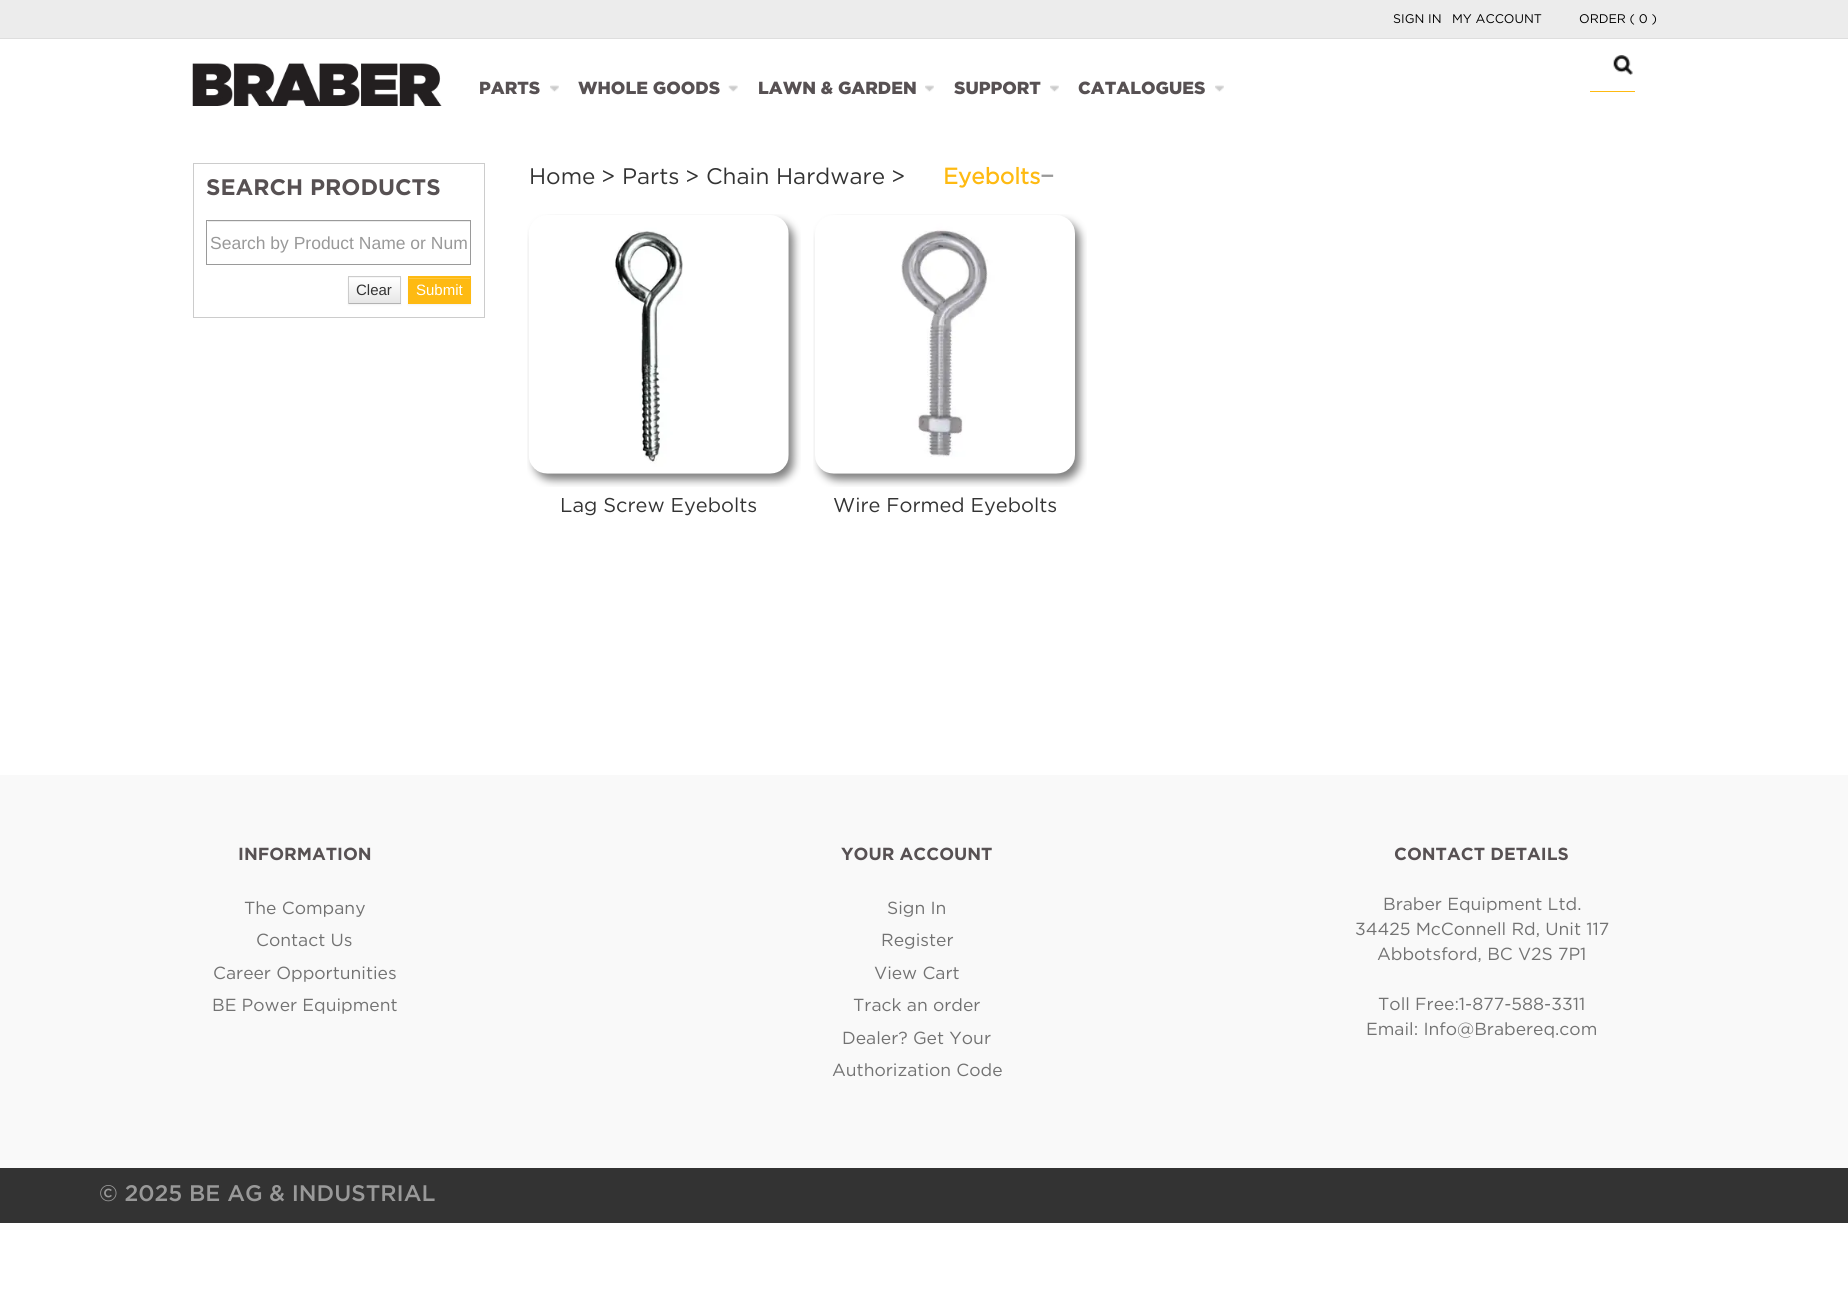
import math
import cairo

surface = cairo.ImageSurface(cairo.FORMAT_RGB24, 1848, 1293)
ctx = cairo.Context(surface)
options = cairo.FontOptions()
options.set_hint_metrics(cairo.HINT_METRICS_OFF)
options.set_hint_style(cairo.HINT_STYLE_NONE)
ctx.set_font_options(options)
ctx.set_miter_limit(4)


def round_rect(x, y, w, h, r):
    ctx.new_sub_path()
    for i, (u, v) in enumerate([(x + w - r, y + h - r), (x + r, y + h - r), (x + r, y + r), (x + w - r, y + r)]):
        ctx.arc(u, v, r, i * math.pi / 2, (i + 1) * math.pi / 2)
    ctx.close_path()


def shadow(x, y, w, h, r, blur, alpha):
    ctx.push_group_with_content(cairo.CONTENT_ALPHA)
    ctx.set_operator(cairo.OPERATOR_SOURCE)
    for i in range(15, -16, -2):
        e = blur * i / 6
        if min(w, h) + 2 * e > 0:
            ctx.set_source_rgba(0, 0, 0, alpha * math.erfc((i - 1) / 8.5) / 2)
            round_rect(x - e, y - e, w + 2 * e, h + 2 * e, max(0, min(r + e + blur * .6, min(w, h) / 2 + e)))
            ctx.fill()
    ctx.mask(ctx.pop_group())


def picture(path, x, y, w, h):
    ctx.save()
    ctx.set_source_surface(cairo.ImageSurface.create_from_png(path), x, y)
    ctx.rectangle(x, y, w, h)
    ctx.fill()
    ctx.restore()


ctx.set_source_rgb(1, 1, 1)
ctx.paint()
ctx.set_source_rgb(0.922, 0.922, 0.922)
ctx.rectangle(0, 0, 1848, 38)
ctx.fill()
ctx.set_source_rgb(0.871, 0.871, 0.871)
ctx.rectangle(0, 38, 1848, 1)
ctx.fill()
ctx.select_font_face("Gotham")
ctx.set_font_size(12.5)
ctx.set_source_rgb(0, 0, 0)
ctx.move_to(1393, 23)
ctx.show_text("SIGN IN")
ctx.move_to(1452, 23)
ctx.show_text("MY ACCOUNT")
ctx.move_to(1579, 23)
ctx.show_text("ORDER ( 0 )")
ctx.select_font_face("Gotham Black")
ctx.set_font_size(17.5)
ctx.set_source_rgb(0.341, 0.318, 0.325)
ctx.move_to(479, 94)
ctx.show_text("PARTS")
picture("img1.png", 550, 85, 9, 7)
ctx.move_to(578, 94)
ctx.show_text("WHOLE GOODS")
picture("img2.png", 728, 85, 10, 7)
ctx.move_to(758, 94)
ctx.show_text("LAWN & GARDEN")
picture("img1.png", 925, 85, 9, 7)
ctx.move_to(954, 94)
ctx.show_text("SUPPORT")
picture("img1.png", 1050, 85, 9, 7)
ctx.move_to(1078, 94)
ctx.show_text("CATALOGUES")
picture("img3.png", 1215, 85, 9, 7)
picture("img4.png", 192, 63, 250, 43)
picture("img5.png", 1613, 55, 20, 20)
ctx.set_source_rgb(0.996, 0.729, 0.071)
ctx.rectangle(1590, 91, 45, 1)
ctx.fill()
ctx.rectangle(193.5, 163.5, 291, 154)
ctx.set_source_rgb(0.8, 0.8, 0.8)
ctx.set_line_width(1)
ctx.stroke()
ctx.select_font_face("Gotham", cairo.FONT_SLANT_NORMAL, cairo.FONT_WEIGHT_BOLD)
ctx.set_font_size(22.5)
ctx.set_source_rgb(0.341, 0.318, 0.325)
ctx.move_to(206, 195)
ctx.show_text("SEARCH PRODUCTS")
ctx.set_source_rgb(0.925, 0.925, 0.925)
ctx.rectangle(208, 221, 262, 1)
ctx.fill()
ctx.rectangle(206.5, 220.5, 264, 44)
ctx.set_source_rgb(0.604, 0.604, 0.604)
ctx.stroke()
ctx.select_font_face("Liberation Sans")
ctx.set_font_size(17.5)
ctx.set_source_rgb(0.6, 0.6, 0.6)
ctx.move_to(210, 249)
ctx.show_text("Search by Product Name or Num")
ctx.set_source_rgb(0, 0, 0)
shadow(348, 278, 53, 27, 0, 1, 0.05)
ctx.set_source_rgb(0.961, 0.961, 0.961)
ctx.rectangle(349, 277, 51, 1)
ctx.fill()
gradient = cairo.LinearGradient(374, 278, 374, 303)
gradient.add_color_stop_rgba(0, 1, 1, 1, 1)
gradient.add_color_stop_rgba(1, 0.902, 0.902, 0.902, 1)
ctx.set_source(gradient)
ctx.rectangle(349, 278, 51, 25)
ctx.fill()
ctx.set_source_rgb(0.8, 0.8, 0.8)
ctx.rectangle(348, 276, 53, 1)
ctx.fill()
ctx.rectangle(400, 276, 1, 28)
ctx.fill()
ctx.set_source_rgb(0.702, 0.702, 0.702)
ctx.rectangle(348, 303, 53, 1)
ctx.fill()
ctx.set_source_rgb(0.8, 0.8, 0.8)
ctx.rectangle(348, 276, 1, 28)
ctx.fill()
ctx.set_font_size(15)
ctx.set_source_rgb(0.2, 0.2, 0.2)
ctx.move_to(356, 295)
ctx.show_text("Clear")
ctx.set_source_rgb(0, 0, 0)
shadow(408, 278, 63, 27, 0, 1, 0.05)
ctx.set_source_rgb(0.996, 0.729, 0.071)
ctx.rectangle(408, 276, 63, 28)
ctx.fill()
ctx.set_source_rgb(0.996, 0.784, 0.255)
ctx.rectangle(409, 278, 61, 1)
ctx.fill()
ctx.set_source_rgb(1, 1, 1)
ctx.move_to(416, 295)
ctx.show_text("Submit")
ctx.select_font_face("Gotham")
ctx.set_font_size(22.5)
ctx.set_source_rgb(0.2, 0.2, 0.2)
ctx.move_to(529, 184)
ctx.show_text("Home")
ctx.move_to(601, 184)
ctx.show_text(">")
ctx.move_to(622, 184)
ctx.show_text("Parts")
ctx.move_to(685, 184)
ctx.show_text(">")
ctx.move_to(706, 184)
ctx.show_text("Chain Hardware")
ctx.move_to(891, 184)
ctx.show_text(">")
ctx.select_font_face("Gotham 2", cairo.FONT_SLANT_NORMAL, cairo.FONT_WEIGHT_BOLD)
ctx.set_source_rgb(0.996, 0.729, 0.071)
ctx.move_to(943, 184)
ctx.show_text("Eyebolts")
ctx.set_source_rgb(0.6, 0.6, 0.6)
ctx.move_to(1040, 184)
ctx.show_text("−")
picture("img6.png", 527, 214, 274, 273)
ctx.select_font_face("Gotham")
ctx.set_font_size(20)
ctx.set_source_rgb(0.2, 0.2, 0.2)
ctx.move_to(560, 512)
ctx.show_text("Lag Screw Eyebolts")
picture("img7.png", 813, 214, 274, 273)
ctx.move_to(833, 512)
ctx.show_text("Wire Formed Eyebolts")
ctx.set_source_rgb(0.973, 0.973, 0.973)
ctx.rectangle(0, 775, 1848, 393)
ctx.fill()
ctx.select_font_face("Gotham", cairo.FONT_SLANT_NORMAL, cairo.FONT_WEIGHT_BOLD)
ctx.set_font_size(17.5)
ctx.set_source_rgb(0.341, 0.318, 0.325)
ctx.move_to(238, 860)
ctx.show_text("INFORMATION")
ctx.select_font_face("Gotham")
ctx.set_source_rgb(0.447, 0.447, 0.447)
ctx.move_to(244, 914)
ctx.show_text("The Company")
ctx.move_to(256, 946)
ctx.show_text("Contact Us")
ctx.move_to(213, 979)
ctx.show_text("Career Opportunities")
ctx.move_to(212, 1011)
ctx.show_text("BE Power Equipment")
ctx.select_font_face("Gotham", cairo.FONT_SLANT_NORMAL, cairo.FONT_WEIGHT_BOLD)
ctx.set_source_rgb(0.341, 0.318, 0.325)
ctx.move_to(841, 860)
ctx.show_text("YOUR ACCOUNT")
ctx.select_font_face("Gotham")
ctx.set_source_rgb(0.447, 0.447, 0.447)
ctx.move_to(887, 914)
ctx.show_text("Sign In")
ctx.move_to(881, 946)
ctx.show_text("Register")
ctx.move_to(874, 979)
ctx.show_text("View Cart")
ctx.move_to(853, 1011)
ctx.show_text("Track an order")
ctx.move_to(842, 1044)
ctx.show_text("Dealer? Get Your")
ctx.move_to(832, 1076)
ctx.show_text("Authorization Code")
ctx.select_font_face("Gotham", cairo.FONT_SLANT_NORMAL, cairo.FONT_WEIGHT_BOLD)
ctx.set_source_rgb(0.341, 0.318, 0.325)
ctx.move_to(1394, 860)
ctx.show_text("CONTACT DETAILS")
ctx.select_font_face("Gotham")
ctx.set_source_rgb(0.447, 0.447, 0.447)
ctx.move_to(1383, 910)
ctx.show_text("Braber Equipment Ltd.")
ctx.move_to(1355, 935)
ctx.show_text("34425 McConnell Rd, Unit 117")
ctx.move_to(1377, 960)
ctx.show_text("Abbotsford, BC V2S 7P1")
ctx.move_to(1378, 1010)
ctx.show_text("Toll Free:1-877-588-3311")
ctx.move_to(1366, 1035)
ctx.show_text("Email: Info@Brabereq.com")
ctx.set_source_rgb(0.2, 0.2, 0.2)
ctx.rectangle(0, 1168, 1848, 55)
ctx.fill()
ctx.select_font_face("Gotham Medium")
ctx.set_font_size(22.5)
ctx.set_source_rgb(0.6, 0.6, 0.6)
ctx.move_to(99, 1201)
ctx.show_text("© 2025 BE AG & INDUSTRIAL")
surface.write_to_png("page.png")
